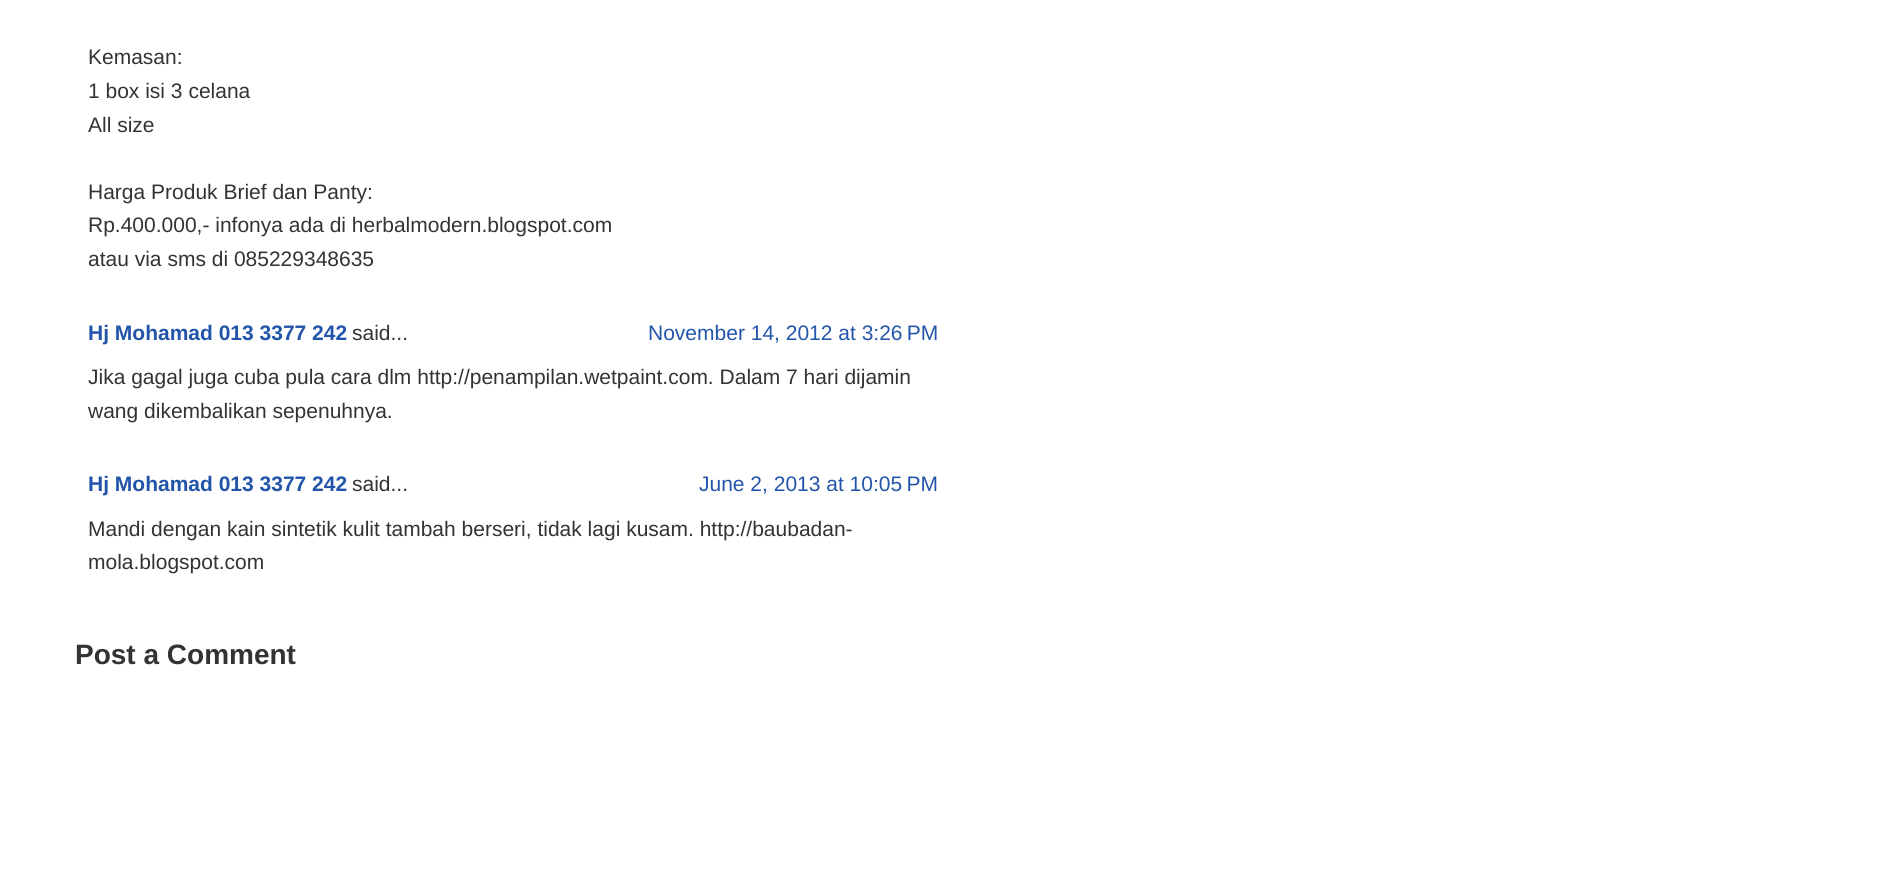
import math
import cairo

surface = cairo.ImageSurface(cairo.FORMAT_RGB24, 1883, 886)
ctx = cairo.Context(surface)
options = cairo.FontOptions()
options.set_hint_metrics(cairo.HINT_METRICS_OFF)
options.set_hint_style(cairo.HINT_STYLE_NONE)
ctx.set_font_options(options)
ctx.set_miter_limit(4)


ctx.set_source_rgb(1, 1, 1)
ctx.paint()
ctx.select_font_face("Liberation Sans")
ctx.set_font_size(21)
ctx.set_source_rgb(0.2, 0.2, 0.2)
ctx.move_to(88, 64)
ctx.show_text("Kemasan:")
ctx.move_to(88, 98)
ctx.show_text("1 box isi 3 celana")
ctx.move_to(88, 132)
ctx.show_text("All size")
ctx.move_to(88, 199)
ctx.show_text("Harga Produk Brief dan Panty:")
ctx.move_to(88, 232)
ctx.show_text("Rp.400.000,- infonya ada di herbalmodern.blogspot.com")
ctx.move_to(88, 266)
ctx.show_text("atau via sms di 085229348635")
ctx.select_font_face("Liberation Sans", cairo.FONT_SLANT_NORMAL, cairo.FONT_WEIGHT_BOLD)
ctx.set_source_rgb(0.133, 0.333, 0.667)
ctx.move_to(88, 340)
ctx.show_text("Hj Mohamad 013 3377 242")
ctx.select_font_face("Liberation Sans")
ctx.set_source_rgb(0.2, 0.2, 0.2)
ctx.move_to(352, 340)
ctx.show_text("said...")
ctx.set_source_rgb(0.133, 0.333, 0.667)
ctx.move_to(648, 340)
ctx.show_text("November 14, 2012 at 3:26 PM")
ctx.set_source_rgb(0.2, 0.2, 0.2)
ctx.move_to(88, 384)
ctx.show_text("Jika gagal juga cuba pula cara dlm http://penampilan.wetpaint.com. Dalam 7 hari dijamin")
ctx.move_to(88, 418)
ctx.show_text("wang dikembalikan sepenuhnya.")
ctx.select_font_face("Liberation Sans", cairo.FONT_SLANT_NORMAL, cairo.FONT_WEIGHT_BOLD)
ctx.set_source_rgb(0.133, 0.333, 0.667)
ctx.move_to(88, 491)
ctx.show_text("Hj Mohamad 013 3377 242")
ctx.select_font_face("Liberation Sans")
ctx.set_source_rgb(0.2, 0.2, 0.2)
ctx.move_to(352, 491)
ctx.show_text("said...")
ctx.set_source_rgb(0.133, 0.333, 0.667)
ctx.move_to(699, 491)
ctx.show_text("June 2, 2013 at 10:05 PM")
ctx.set_source_rgb(0.2, 0.2, 0.2)
ctx.move_to(88, 536)
ctx.show_text("Mandi dengan kain sintetik kulit tambah berseri, tidak lagi kusam. http://baubadan-")
ctx.move_to(88, 569)
ctx.show_text("mola.blogspot.com")
ctx.select_font_face("Liberation Sans", cairo.FONT_SLANT_NORMAL, cairo.FONT_WEIGHT_BOLD)
ctx.set_font_size(28)
ctx.move_to(75, 664)
ctx.show_text("Post a Comment")
surface.write_to_png("page.png")
